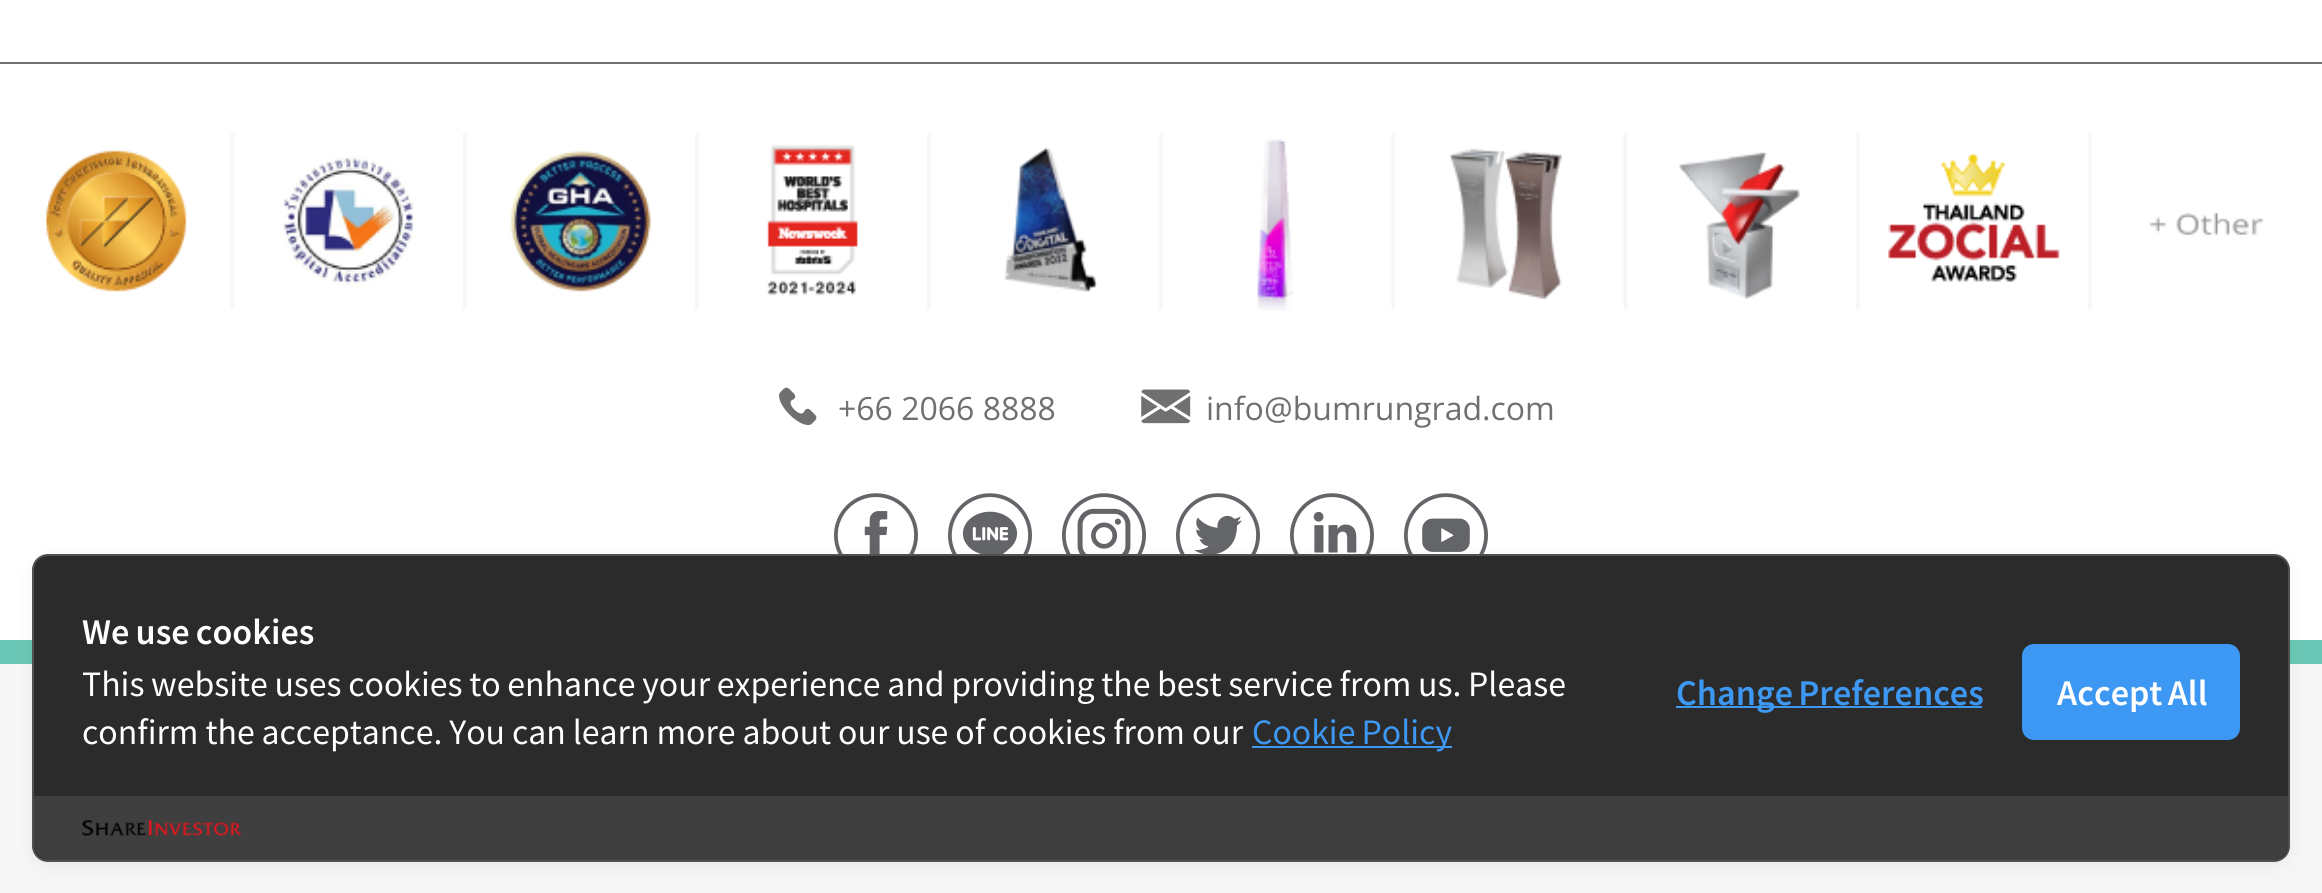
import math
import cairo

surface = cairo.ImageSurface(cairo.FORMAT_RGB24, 2322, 893)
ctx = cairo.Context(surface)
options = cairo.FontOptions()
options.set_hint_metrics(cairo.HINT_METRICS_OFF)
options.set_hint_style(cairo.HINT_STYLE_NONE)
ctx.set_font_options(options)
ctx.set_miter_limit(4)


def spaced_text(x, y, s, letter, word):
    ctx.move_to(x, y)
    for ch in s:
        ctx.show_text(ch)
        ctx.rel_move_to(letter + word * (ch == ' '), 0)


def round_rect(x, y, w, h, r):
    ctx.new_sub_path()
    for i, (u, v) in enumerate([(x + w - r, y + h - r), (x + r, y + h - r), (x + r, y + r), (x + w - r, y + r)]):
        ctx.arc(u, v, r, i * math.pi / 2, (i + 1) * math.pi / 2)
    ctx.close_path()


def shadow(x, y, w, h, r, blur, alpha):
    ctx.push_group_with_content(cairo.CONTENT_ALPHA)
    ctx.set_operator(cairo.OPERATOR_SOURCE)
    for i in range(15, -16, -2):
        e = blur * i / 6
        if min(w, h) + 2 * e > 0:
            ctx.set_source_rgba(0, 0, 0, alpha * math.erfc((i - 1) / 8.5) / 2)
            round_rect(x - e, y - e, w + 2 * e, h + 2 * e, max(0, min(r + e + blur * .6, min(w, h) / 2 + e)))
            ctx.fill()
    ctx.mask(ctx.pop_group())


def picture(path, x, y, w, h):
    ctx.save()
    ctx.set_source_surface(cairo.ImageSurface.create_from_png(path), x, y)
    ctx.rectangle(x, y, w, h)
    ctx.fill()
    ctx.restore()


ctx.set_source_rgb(1, 1, 1)
ctx.paint()
ctx.set_source_rgb(0.439, 0.439, 0.439)
ctx.rectangle(0, 62, 2322, 2)
ctx.fill()
picture("img1.png", 46, 133, 2218, 178)
picture("img2.png", 779, 387, 38, 38)
ctx.select_font_face("Open Sans")
ctx.set_font_size(32)
ctx.move_to(838, 420)
ctx.show_text("+66 2066 8888")
picture("img3.png", 1141, 389, 50, 35)
ctx.move_to(1206, 420)
ctx.show_text("info@bumrungrad.com")
picture("img4.png", 834, 493, 84, 61)
picture("img5.png", 948, 493, 84, 61)
picture("img6.png", 1062, 493, 84, 61)
picture("img7.png", 1176, 493, 84, 61)
picture("img8.png", 1290, 493, 84, 61)
picture("img9.png", 1404, 493, 84, 61)
ctx.set_source_rgb(0.961, 0.961, 0.961)
ctx.rectangle(0, 664, 2322, 229)
ctx.fill()
ctx.set_source_rgb(0.42, 0.78, 0.71)
ctx.rectangle(0, 640, 2322, 24)
ctx.fill()
ctx.set_source_rgb(0, 0, 0)
shadow(32, 558, 2258, 308, 16, 8, 0.05)
ctx.set_source_rgb(0.169, 0.169, 0.169)
round_rect(33, 555, 2256, 306, 15)
ctx.fill_preserve()
ctx.set_source_rgb(0.314, 0.314, 0.314)
ctx.stroke()
ctx.select_font_face("Noto Sans JP SemiBold")
ctx.set_source_rgb(1, 1, 1)
spaced_text(82, 644, "We use cookies", 0, -1)
ctx.select_font_face("Noto Sans JP")
spaced_text(82, 696, "This website uses cookies to enhance your experience and providing the best service from us. Please", 0, -0.5)
spaced_text(82, 744, "confirm the acceptance. You can learn more about our use of cookies from our", 0, -0.25)
ctx.set_source_rgb(0.239, 0.596, 0.953)
ctx.rectangle(1252, 746, 200, 2)
ctx.fill()
spaced_text(1252, 744, "Cookie Policy", 0, -1)
ctx.rectangle(1676, 706, 306, 2)
ctx.fill()
ctx.select_font_face("Noto Sans JP SemiBold")
spaced_text(1676, 705, "Change Preferences", 0, -2)
round_rect(2022, 644, 218, 96, 12)
ctx.fill()
ctx.set_source_rgb(1, 1, 1)
spaced_text(2057, 705, "Accept All", 0, -2)
ctx.set_source_rgb(0.247, 0.247, 0.247)
ctx.new_path()
ctx.move_to(34, 796)
ctx.line_to(2288, 796)
ctx.line_to(2288, 844)
ctx.curve_to(2288, 853, 2281, 860, 2272, 860)
ctx.line_to(50, 860)
ctx.curve_to(41, 860, 34, 853, 34, 844)
ctx.close_path()
ctx.fill()
picture("img10.png", 82, 820, 160, 16)
surface.write_to_png("page.png")
